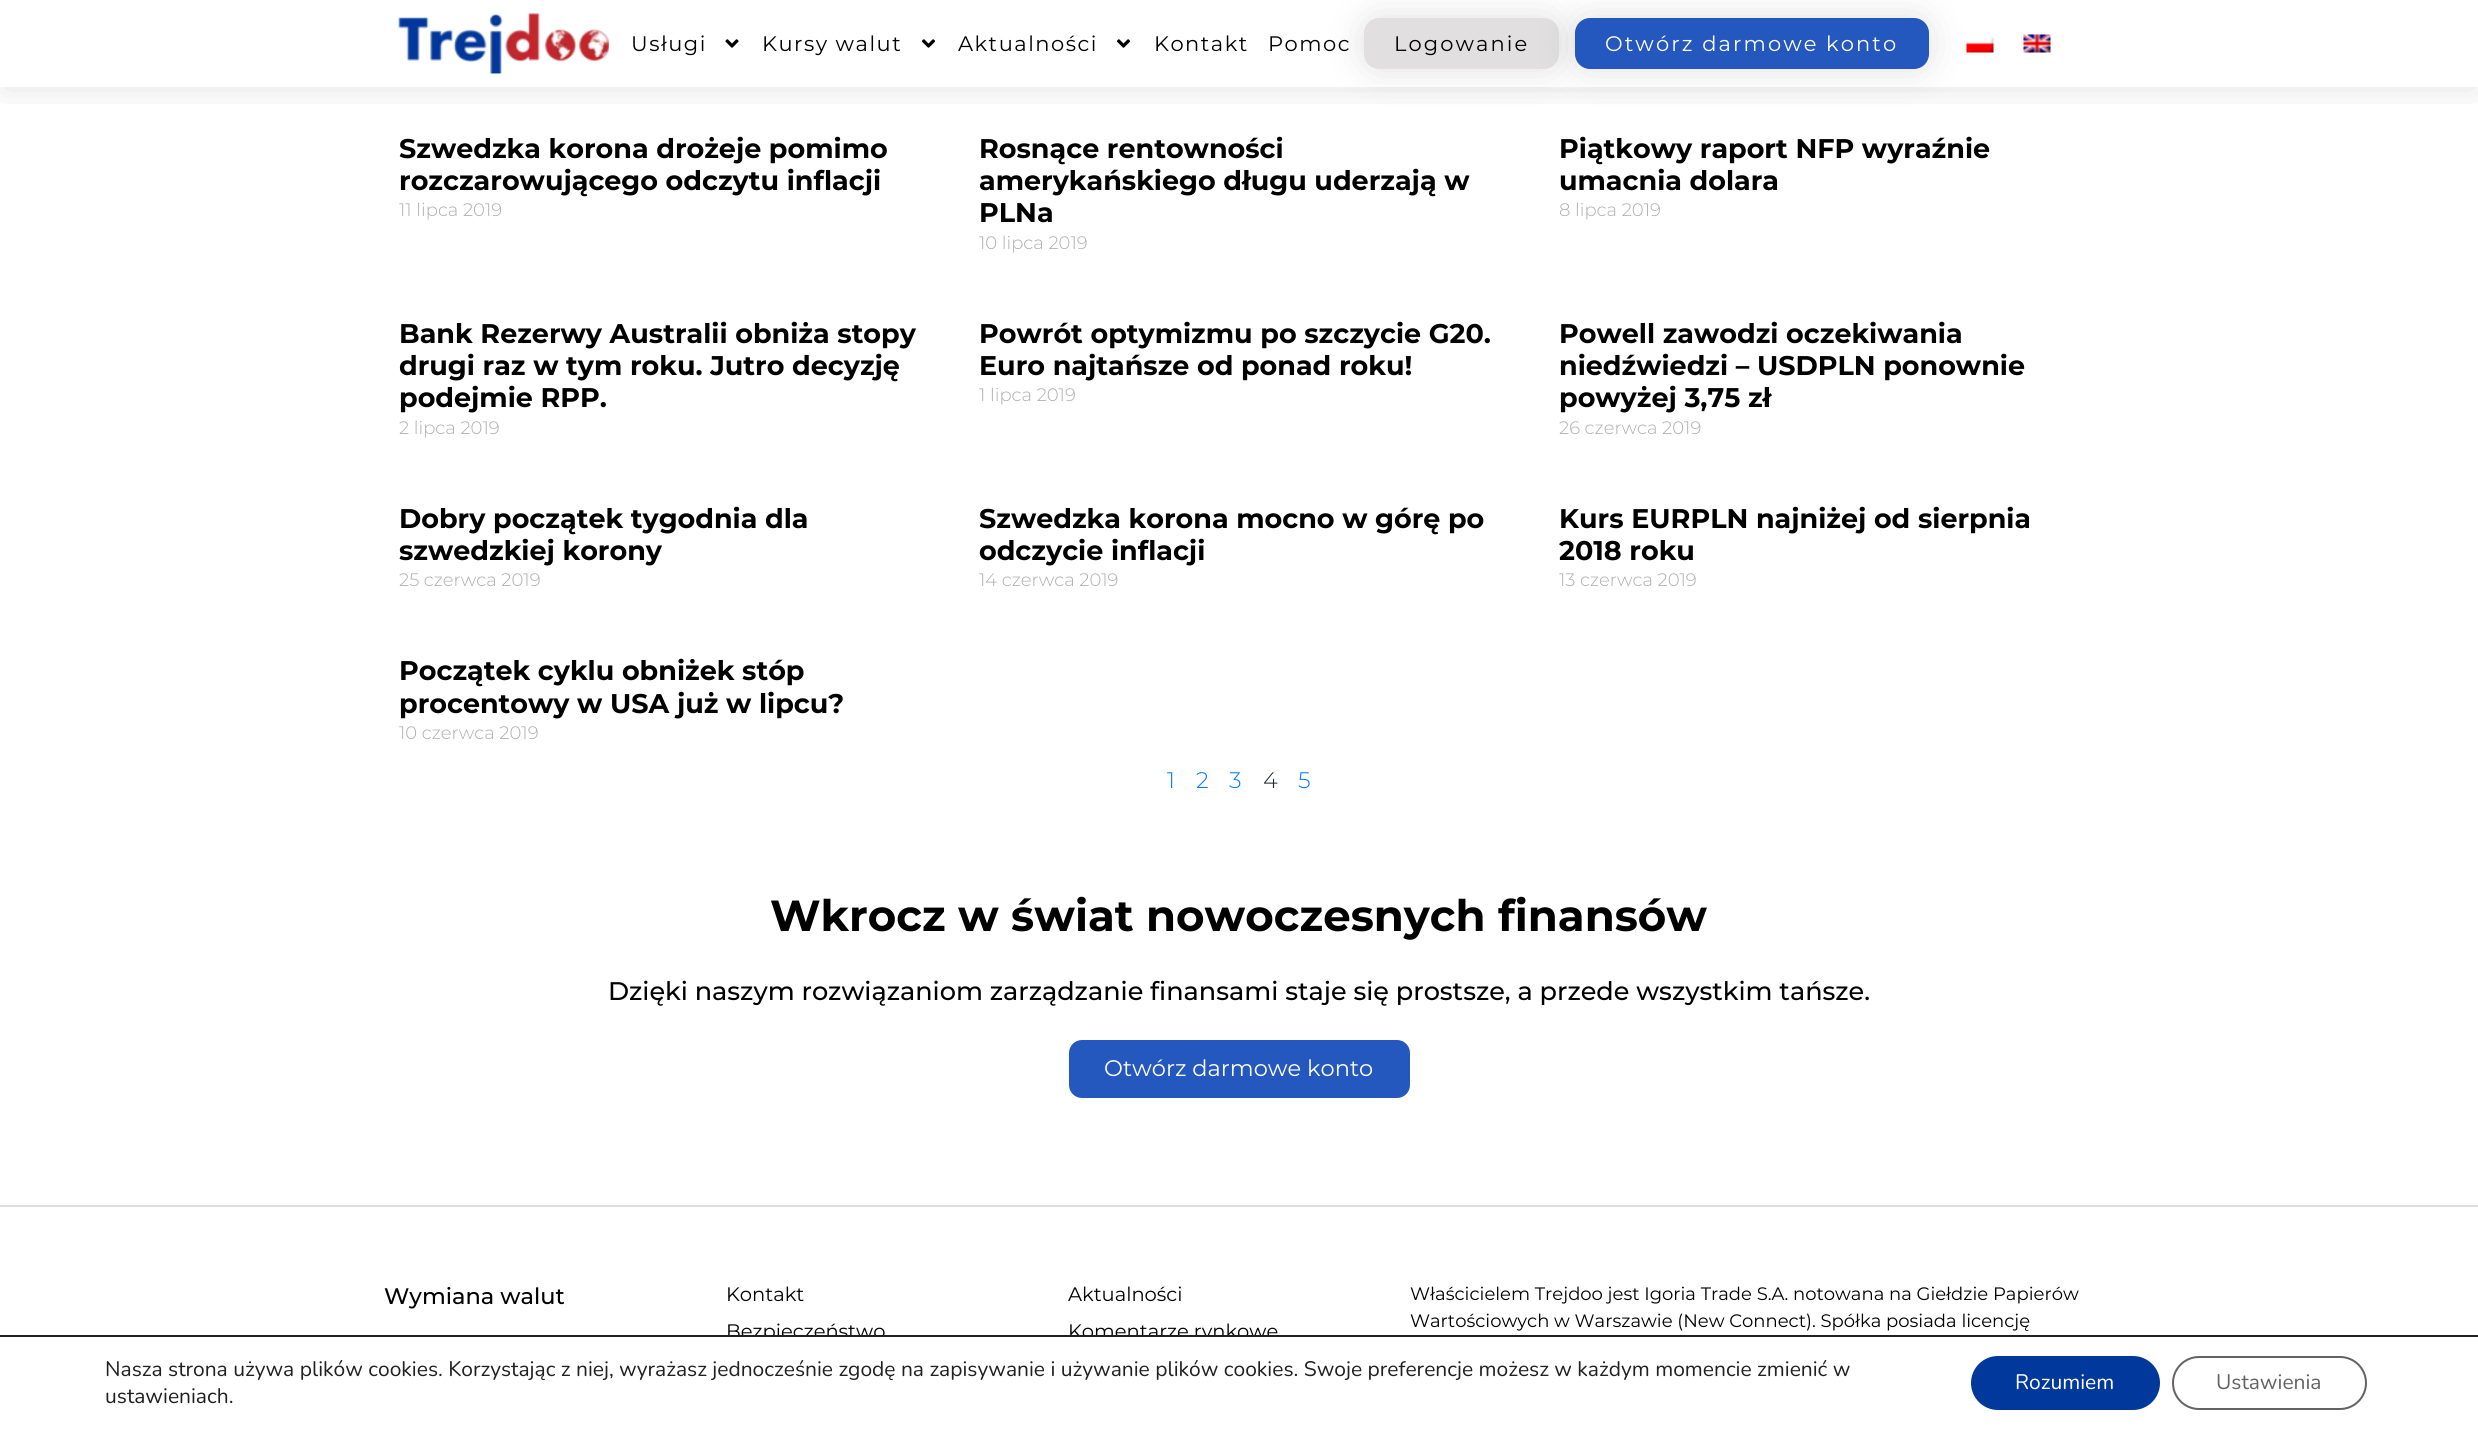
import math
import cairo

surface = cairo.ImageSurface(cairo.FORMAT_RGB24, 2478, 1429)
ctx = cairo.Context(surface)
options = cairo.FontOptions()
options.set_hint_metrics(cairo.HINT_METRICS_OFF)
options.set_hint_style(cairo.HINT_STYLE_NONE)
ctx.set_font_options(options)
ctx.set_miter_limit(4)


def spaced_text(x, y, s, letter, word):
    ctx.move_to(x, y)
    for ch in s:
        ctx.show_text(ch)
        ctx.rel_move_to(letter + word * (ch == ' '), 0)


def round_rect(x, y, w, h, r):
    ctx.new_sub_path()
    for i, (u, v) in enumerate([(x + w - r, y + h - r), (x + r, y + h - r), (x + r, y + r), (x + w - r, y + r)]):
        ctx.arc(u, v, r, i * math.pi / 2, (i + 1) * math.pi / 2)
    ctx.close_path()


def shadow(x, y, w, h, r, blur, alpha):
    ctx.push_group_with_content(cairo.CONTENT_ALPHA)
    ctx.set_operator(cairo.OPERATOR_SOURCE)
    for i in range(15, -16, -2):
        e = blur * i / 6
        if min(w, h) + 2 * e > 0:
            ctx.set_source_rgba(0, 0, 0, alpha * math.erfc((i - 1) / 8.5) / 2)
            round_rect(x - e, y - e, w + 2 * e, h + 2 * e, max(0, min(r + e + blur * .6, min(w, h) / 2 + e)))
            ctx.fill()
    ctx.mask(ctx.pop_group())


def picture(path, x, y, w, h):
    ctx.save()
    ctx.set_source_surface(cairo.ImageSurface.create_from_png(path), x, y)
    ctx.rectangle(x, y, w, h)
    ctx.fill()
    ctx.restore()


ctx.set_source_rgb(1, 1, 1)
ctx.paint()
ctx.save()
ctx.rectangle(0, 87, 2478, 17)
ctx.clip()
ctx.set_source_rgb(0, 0, 0)
shadow(5, 5, 2469, 78, 0, 19, 0.15)
ctx.restore()
picture("img1.png", 398, 13, 211, 61)
ctx.select_font_face("Montserrat")
ctx.set_font_size(21)
ctx.set_source_rgb(0, 0, 0)
spaced_text(631, 51, "Usługi", 1.5, 0)
picture("img2.png", 725, 39, 14, 9)
spaced_text(762, 51, "Kursy walut", 1.5, 0)
picture("img3.png", 922, 39, 13, 9)
spaced_text(958, 51, "Aktualności", 1.5, 0)
picture("img3.png", 1117, 39, 13, 9)
spaced_text(1154, 51, "Kontakt", 1.5, 0)
ctx.set_source_rgb(0, 0, 0)
shadow(1364, 18, 195, 51, 15, 20, 0.12)
ctx.set_source_rgb(0, 0, 0)
spaced_text(1268, 51, "Pomoc", 1.5, 0)
ctx.set_source_rgb(0.882, 0.875, 0.875)
round_rect(1364, 18, 195, 51, 15)
ctx.fill()
ctx.set_source_rgb(0, 0, 0)
spaced_text(1394, 51, "Logowanie", 2.1, 0)
ctx.set_source_rgb(0, 0, 0)
shadow(1575, 18, 354, 51, 15, 20, 0.12)
ctx.set_source_rgb(0.141, 0.345, 0.749)
round_rect(1575, 18, 354, 51, 15)
ctx.fill()
ctx.set_source_rgb(1, 1, 1)
spaced_text(1605, 51, "Otwórz darmowe konto", 2.1, 0)
picture("img4.png", 1966, 37, 28, 16)
picture("img5.png", 2023, 34, 28, 19)
ctx.select_font_face("Montserrat", cairo.FONT_SLANT_NORMAL, cairo.FONT_WEIGHT_BOLD)
ctx.set_font_size(27)
ctx.set_source_rgb(0, 0, 0)
ctx.move_to(399, 158)
ctx.show_text("Szwedzka korona drożeje pomimo")
ctx.move_to(399, 190)
ctx.show_text("rozczarowującego odczytu inflacji")
ctx.select_font_face("Montserrat Light")
ctx.set_font_size(18)
ctx.set_source_rgb(0.678, 0.678, 0.678)
ctx.move_to(399, 216)
ctx.show_text("11 lipca 2019")
ctx.select_font_face("Montserrat", cairo.FONT_SLANT_NORMAL, cairo.FONT_WEIGHT_BOLD)
ctx.set_font_size(27)
ctx.set_source_rgb(0, 0, 0)
ctx.move_to(979, 158)
ctx.show_text("Rosnące rentowności")
ctx.move_to(979, 190)
ctx.show_text("amerykańskiego długu uderzają w")
ctx.move_to(979, 222)
ctx.show_text("PLNa")
ctx.select_font_face("Montserrat Light")
ctx.set_font_size(18)
ctx.set_source_rgb(0.678, 0.678, 0.678)
ctx.move_to(979, 249)
ctx.show_text("10 lipca 2019")
ctx.select_font_face("Montserrat", cairo.FONT_SLANT_NORMAL, cairo.FONT_WEIGHT_BOLD)
ctx.set_font_size(27)
ctx.set_source_rgb(0, 0, 0)
ctx.move_to(1559, 158)
ctx.show_text("Piątkowy raport NFP wyraźnie")
ctx.move_to(1559, 190)
ctx.show_text("umacnia dolara")
ctx.select_font_face("Montserrat Light")
ctx.set_font_size(18)
ctx.set_source_rgb(0.678, 0.678, 0.678)
ctx.move_to(1559, 216)
ctx.show_text("8 lipca 2019")
ctx.select_font_face("Montserrat", cairo.FONT_SLANT_NORMAL, cairo.FONT_WEIGHT_BOLD)
ctx.set_font_size(27)
ctx.set_source_rgb(0, 0, 0)
ctx.move_to(399, 343)
ctx.show_text("Bank Rezerwy Australii obniża stopy")
ctx.move_to(399, 375)
ctx.show_text("drugi raz w tym roku. Jutro decyzję")
ctx.move_to(399, 407)
ctx.show_text("podejmie RPP.")
ctx.select_font_face("Montserrat Light")
ctx.set_font_size(18)
ctx.set_source_rgb(0.678, 0.678, 0.678)
ctx.move_to(399, 434)
ctx.show_text("2 lipca 2019")
ctx.select_font_face("Montserrat", cairo.FONT_SLANT_NORMAL, cairo.FONT_WEIGHT_BOLD)
ctx.set_font_size(27)
ctx.set_source_rgb(0, 0, 0)
ctx.move_to(979, 343)
ctx.show_text("Powrót optymizmu po szczycie G20.")
ctx.move_to(979, 375)
ctx.show_text("Euro najtańsze od ponad roku!")
ctx.select_font_face("Montserrat Light")
ctx.set_font_size(18)
ctx.set_source_rgb(0.678, 0.678, 0.678)
ctx.move_to(979, 401)
ctx.show_text("1 lipca 2019")
ctx.select_font_face("Montserrat", cairo.FONT_SLANT_NORMAL, cairo.FONT_WEIGHT_BOLD)
ctx.set_font_size(27)
ctx.set_source_rgb(0, 0, 0)
ctx.move_to(1559, 343)
ctx.show_text("Powell zawodzi oczekiwania")
ctx.move_to(1559, 375)
ctx.show_text("niedźwiedzi – USDPLN ponownie")
ctx.move_to(1559, 407)
ctx.show_text("powyżej 3,75 zł")
ctx.select_font_face("Montserrat Light")
ctx.set_font_size(18)
ctx.set_source_rgb(0.678, 0.678, 0.678)
ctx.move_to(1559, 434)
ctx.show_text("26 czerwca 2019")
ctx.select_font_face("Montserrat", cairo.FONT_SLANT_NORMAL, cairo.FONT_WEIGHT_BOLD)
ctx.set_font_size(27)
ctx.set_source_rgb(0, 0, 0)
ctx.move_to(399, 528)
ctx.show_text("Dobry początek tygodnia dla")
ctx.move_to(399, 560)
ctx.show_text("szwedzkiej korony")
ctx.select_font_face("Montserrat Light")
ctx.set_font_size(18)
ctx.set_source_rgb(0.678, 0.678, 0.678)
ctx.move_to(399, 586)
ctx.show_text("25 czerwca 2019")
ctx.select_font_face("Montserrat", cairo.FONT_SLANT_NORMAL, cairo.FONT_WEIGHT_BOLD)
ctx.set_font_size(27)
ctx.set_source_rgb(0, 0, 0)
ctx.move_to(979, 528)
ctx.show_text("Szwedzka korona mocno w górę po")
ctx.move_to(979, 560)
ctx.show_text("odczycie inflacji")
ctx.select_font_face("Montserrat Light")
ctx.set_font_size(18)
ctx.set_source_rgb(0.678, 0.678, 0.678)
ctx.move_to(979, 586)
ctx.show_text("14 czerwca 2019")
ctx.select_font_face("Montserrat", cairo.FONT_SLANT_NORMAL, cairo.FONT_WEIGHT_BOLD)
ctx.set_font_size(27)
ctx.set_source_rgb(0, 0, 0)
ctx.move_to(1559, 528)
ctx.show_text("Kurs EURPLN najniżej od sierpnia")
ctx.move_to(1559, 560)
ctx.show_text("2018 roku")
ctx.select_font_face("Montserrat Light")
ctx.set_font_size(18)
ctx.set_source_rgb(0.678, 0.678, 0.678)
ctx.move_to(1559, 586)
ctx.show_text("13 czerwca 2019")
ctx.select_font_face("Montserrat", cairo.FONT_SLANT_NORMAL, cairo.FONT_WEIGHT_BOLD)
ctx.set_font_size(27)
ctx.set_source_rgb(0, 0, 0)
ctx.move_to(399, 680)
ctx.show_text("Początek cyklu obniżek stóp")
ctx.move_to(399, 713)
ctx.show_text("procentowy w USA już w lipcu?")
ctx.select_font_face("Montserrat Light")
ctx.set_font_size(18)
ctx.set_source_rgb(0.678, 0.678, 0.678)
ctx.move_to(399, 739)
ctx.show_text("10 czerwca 2019")
ctx.set_font_size(22.5)
ctx.set_source_rgb(0, 0.482, 1)
ctx.move_to(1167, 788)
ctx.show_text("1")
ctx.move_to(1196, 788)
ctx.show_text("2")
ctx.move_to(1229, 788)
ctx.show_text("3")
ctx.set_source_rgb(0.129, 0.145, 0.161)
ctx.move_to(1263, 788)
ctx.show_text("4")
ctx.set_source_rgb(0, 0.482, 1)
ctx.move_to(1298, 788)
ctx.show_text("5")
ctx.select_font_face("Montserrat", cairo.FONT_SLANT_NORMAL, cairo.FONT_WEIGHT_BOLD)
ctx.set_font_size(43.5)
ctx.set_source_rgb(0, 0, 0)
ctx.move_to(770, 931)
ctx.show_text("Wkrocz w świat nowoczesnych finansów")
ctx.select_font_face("Montserrat Medium")
ctx.set_font_size(25.5)
ctx.move_to(608, 1000)
ctx.show_text("Dzięki naszym rozwiązaniom zarządzanie finansami staje się prostsze, a przede wszystkim tańsze.")
ctx.set_source_rgb(0.141, 0.345, 0.749)
round_rect(1068, 1039, 343, 60, 14)
ctx.fill_preserve()
ctx.set_source_rgb(1, 1, 1)
ctx.stroke()
ctx.select_font_face("Montserrat")
ctx.set_font_size(22.5)
ctx.move_to(1104, 1076)
ctx.show_text("Otwórz darmowe konto")
ctx.set_source_rgb(0.867, 0.867, 0.867)
ctx.rectangle(0, 1205, 2478, 2)
ctx.fill()
ctx.select_font_face("Montserrat Medium")
ctx.set_source_rgb(0, 0, 0)
ctx.move_to(384, 1304)
ctx.show_text("Wymiana walut")
ctx.select_font_face("Montserrat")
ctx.set_font_size(19.5)
ctx.move_to(726, 1301)
ctx.show_text("Kontakt")
ctx.move_to(726, 1338)
ctx.show_text("Bezpieczeństwo")
ctx.move_to(1068, 1301)
ctx.show_text("Aktualności")
ctx.move_to(1068, 1338)
ctx.show_text("Komentarze rynkowe")
ctx.set_font_size(18)
ctx.move_to(1410, 1300)
ctx.show_text("Właścicielem Trejdoo jest Igoria Trade S.A. notowana na Giełdzie Papierów")
ctx.move_to(1410, 1327)
ctx.show_text("Wartościowych w Warszawie (New Connect). Spółka posiada licencję")
ctx.set_source_rgb(1, 1, 1)
ctx.rectangle(728, 1337, 548, 5)
ctx.fill()
ctx.set_source_rgb(0.125, 0.125, 0.125)
ctx.rectangle(0, 1335, 2478, 2)
ctx.fill()
ctx.select_font_face("Nunito")
ctx.set_font_size(21)
ctx.move_to(105, 1376)
ctx.show_text("Nasza strona używa plików cookies. Korzystając z niej, wyrażasz jednocześnie zgodę na zapisywanie i używanie plików cookies. Swoje preferencje możesz w każdym momencie zmienić w")
ctx.move_to(105, 1403)
ctx.show_text("ustawieniach.")
ctx.set_source_rgb(0.004, 0.22, 0.612)
round_rect(1971, 1356, 189, 54, 27)
ctx.fill()
ctx.set_source_rgb(1, 1, 1)
ctx.move_to(2015, 1389)
ctx.show_text("Rozumiem")
round_rect(2173, 1357, 193, 52, 26)
ctx.set_source_rgb(0.388, 0.388, 0.388)
ctx.stroke()
ctx.move_to(2216, 1389)
ctx.show_text("Ustawienia")
surface.write_to_png("page.png")
